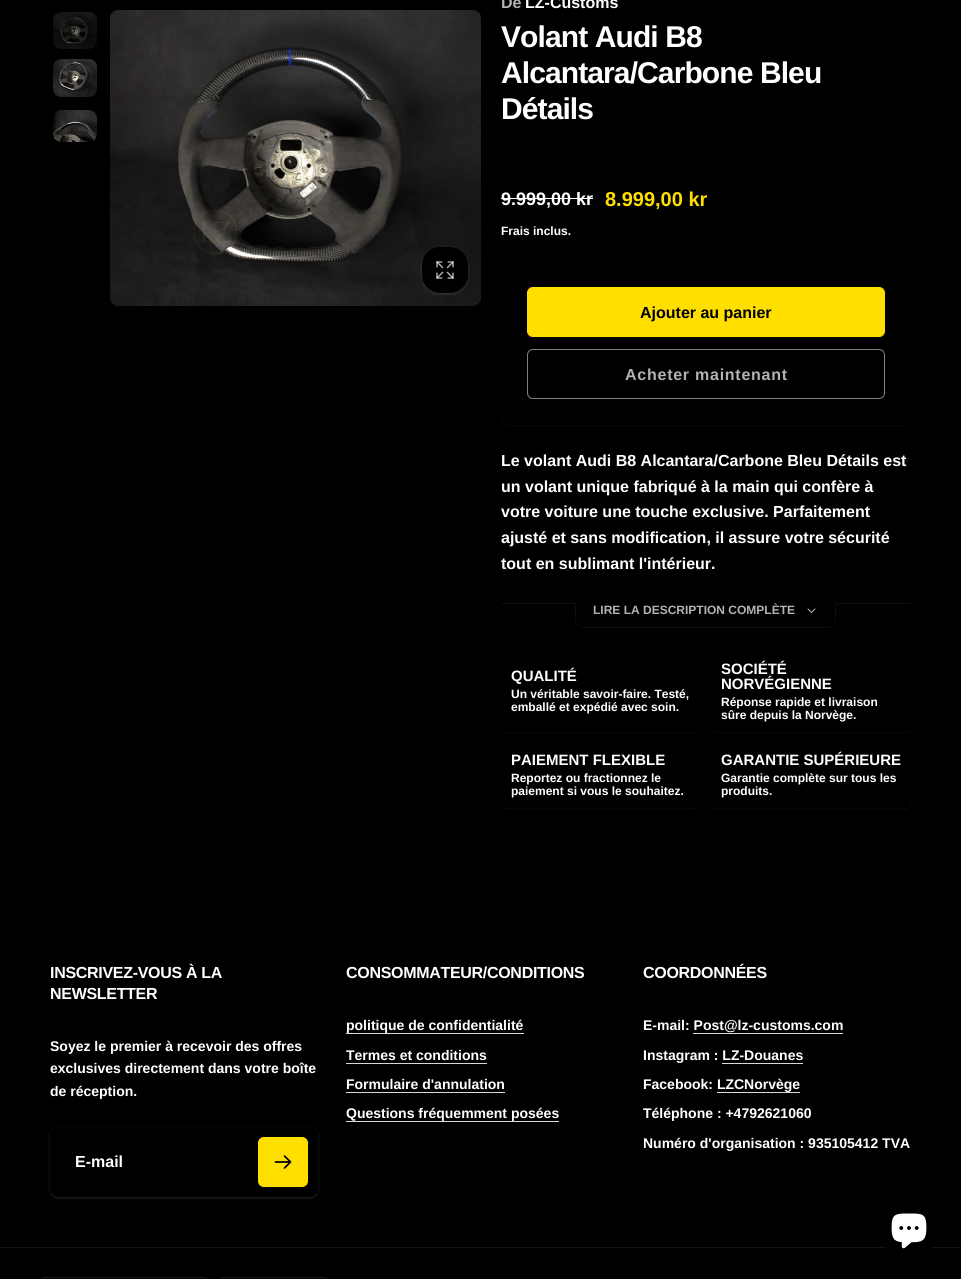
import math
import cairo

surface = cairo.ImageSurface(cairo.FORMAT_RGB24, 961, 1279)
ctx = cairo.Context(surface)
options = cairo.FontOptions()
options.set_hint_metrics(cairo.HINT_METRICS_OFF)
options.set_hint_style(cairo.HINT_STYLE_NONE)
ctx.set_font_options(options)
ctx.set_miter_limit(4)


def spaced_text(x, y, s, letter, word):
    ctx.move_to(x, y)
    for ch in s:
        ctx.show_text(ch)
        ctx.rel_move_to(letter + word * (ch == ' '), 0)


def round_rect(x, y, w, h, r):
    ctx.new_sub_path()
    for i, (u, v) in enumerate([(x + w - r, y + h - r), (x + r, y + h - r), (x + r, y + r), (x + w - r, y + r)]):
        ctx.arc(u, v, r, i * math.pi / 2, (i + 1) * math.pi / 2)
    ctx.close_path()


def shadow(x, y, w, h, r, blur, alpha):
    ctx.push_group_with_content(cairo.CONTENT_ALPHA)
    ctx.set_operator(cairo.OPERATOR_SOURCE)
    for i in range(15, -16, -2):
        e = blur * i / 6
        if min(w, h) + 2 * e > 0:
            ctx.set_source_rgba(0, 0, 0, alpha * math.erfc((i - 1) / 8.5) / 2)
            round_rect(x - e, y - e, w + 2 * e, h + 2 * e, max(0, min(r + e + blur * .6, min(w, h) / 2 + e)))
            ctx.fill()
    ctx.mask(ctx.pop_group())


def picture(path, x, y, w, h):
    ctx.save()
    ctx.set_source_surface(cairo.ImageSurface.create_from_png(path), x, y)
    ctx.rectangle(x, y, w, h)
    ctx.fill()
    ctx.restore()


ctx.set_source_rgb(0, 0, 0)
ctx.paint()
picture("img1.png", 53, 12, 44, 37)
picture("img2.png", 53, 59, 44, 38)
picture("img3.png", 53, 110, 44, 32)
picture("img4.png", 110, 10, 371, 296)
ctx.set_source_rgb(1, 1, 1)
shadow(422, 248, 46, 46, 18, 1, 0.06)
shadow(422, 248, 46, 46, 18, 1.5, 0.1)
ctx.set_source_rgb(0, 0, 0)
round_rect(422, 247, 46, 46, 18)
ctx.fill()
picture("img5.png", 436, 261, 18, 18)
ctx.select_font_face("Arimo", cairo.FONT_SLANT_NORMAL, cairo.FONT_WEIGHT_BOLD)
ctx.set_font_size(16)
ctx.set_source_rgb(0.702, 0.702, 0.702)
ctx.move_to(501, 8)
ctx.show_text("De")
ctx.set_source_rgb(1, 1, 1)
ctx.move_to(525, 8)
ctx.show_text("LZ-Customs")
ctx.set_font_size(30)
spaced_text(501, 47, "Volant Audi B8", -0.9, 0)
spaced_text(501, 83, "Alcantara/Carbone Bleu", -0.9, 0)
spaced_text(501, 119, "Détails", -0.9, 0)
ctx.set_font_size(18)
ctx.move_to(501, 205)
ctx.show_text("9.999,00 kr")
ctx.rectangle(501, 198, 92, 1)
ctx.fill()
ctx.set_font_size(20)
ctx.set_source_rgb(1, 0.875, 0)
ctx.move_to(605, 206)
ctx.show_text("8.999,00 kr")
ctx.set_font_size(12)
ctx.set_source_rgb(1, 1, 1)
ctx.move_to(501, 235)
ctx.show_text("Frais inclus.")
ctx.set_source_rgb(1, 1, 1)
shadow(501, 262, 410, 164, 10, 1, 0.05)
ctx.set_source_rgb(0, 0, 0)
round_rect(501, 261, 410, 164, 10)
ctx.fill()
ctx.set_source_rgb(1, 1, 1)
shadow(527, 288, 358, 50, 6, 1, 0.05)
ctx.set_source_rgb(1, 0.875, 0)
round_rect(527.5, 287.5, 357, 49, 5.5)
ctx.fill_preserve()
ctx.set_line_width(1)
ctx.stroke()
ctx.set_font_size(16)
ctx.set_source_rgb(0, 0, 0)
ctx.move_to(640, 318)
ctx.show_text("Ajouter au panier")
round_rect(527.5, 349.5, 357, 49, 5.5)
ctx.set_source_rgb(0.502, 0.502, 0.502)
ctx.stroke()
ctx.set_source_rgb(0.702, 0.702, 0.702)
spaced_text(625, 380, "Acheter maintenant", 0.75, 0)
ctx.set_source_rgb(1, 1, 1)
ctx.move_to(501, 466)
ctx.show_text("Le volant Audi B8 Alcantara/Carbone Bleu Détails est")
ctx.move_to(501, 492)
ctx.show_text("un volant unique fabriqué à la main qui confère à")
ctx.move_to(501, 517)
ctx.show_text("votre voiture une touche exclusive. Parfaitement")
ctx.move_to(501, 543)
ctx.show_text("ajusté et sans modification, il assure votre sécurité")
ctx.move_to(501, 569)
ctx.show_text("tout en sublimant l'intérieur.")
ctx.set_source_rgb(0.051, 0.051, 0.051)
ctx.rectangle(501, 603, 74, 1)
ctx.fill()
ctx.set_fill_rule(cairo.FILL_RULE_EVEN_ODD)
ctx.new_path()
ctx.move_to(575, 603)
ctx.line_to(836, 603)
ctx.line_to(836, 620)
ctx.curve_to(836, 624, 832, 628, 828, 628)
ctx.line_to(583, 628)
ctx.curve_to(579, 628, 575, 624, 575, 620)
ctx.close_path()
ctx.move_to(576, 603)
ctx.line_to(835, 603)
ctx.line_to(835, 620)
ctx.curve_to(835, 624, 832, 627, 828, 627)
ctx.line_to(583, 627)
ctx.curve_to(579, 627, 576, 624, 576, 620)
ctx.close_path()
ctx.fill()
ctx.set_font_size(12)
ctx.set_source_rgb(0.702, 0.702, 0.702)
ctx.move_to(593, 614)
ctx.show_text("LIRE LA DESCRIPTION COMPLÈTE")
ctx.new_path()
ctx.move_to(815, 609)
ctx.line_to(811.5, 612.5)
ctx.line_to(808, 609)
ctx.set_line_cap(cairo.LINE_CAP_ROUND)
ctx.set_line_join(cairo.LINE_JOIN_ROUND)
ctx.stroke()
ctx.set_source_rgb(0.051, 0.051, 0.051)
ctx.rectangle(836, 603, 75, 1)
ctx.fill()
ctx.set_source_rgb(1, 1, 1)
shadow(501, 652, 200, 81, 5, 1, 0.05)
ctx.set_source_rgb(0, 0, 0)
round_rect(501, 651, 200, 81, 5)
ctx.fill()
ctx.set_font_size(15)
ctx.set_source_rgb(1, 1, 1)
ctx.move_to(511, 681)
ctx.show_text("QUALITÉ")
ctx.set_font_size(12)
ctx.move_to(511, 698)
ctx.show_text("Un véritable savoir-faire. Testé,")
ctx.move_to(511, 711)
ctx.show_text("emballé et expédié avec soin.")
ctx.set_source_rgb(1, 1, 1)
shadow(711, 652, 200, 81, 5, 1, 0.05)
ctx.set_source_rgb(0, 0, 0)
round_rect(711, 651, 200, 81, 5)
ctx.fill()
ctx.set_font_size(15)
ctx.set_source_rgb(1, 1, 1)
ctx.move_to(721, 674)
ctx.show_text("SOCIÉTÉ")
ctx.move_to(721, 689)
ctx.show_text("NORVÉGIENNE")
ctx.set_font_size(12)
ctx.move_to(721, 706)
ctx.show_text("Réponse rapide et livraison")
ctx.move_to(721, 719)
ctx.show_text("sûre depuis la Norvège.")
ctx.set_source_rgb(1, 1, 1)
shadow(501, 743, 200, 66, 5, 1, 0.05)
ctx.set_source_rgb(0, 0, 0)
round_rect(501, 742, 200, 66, 5)
ctx.fill()
ctx.set_font_size(15)
ctx.set_source_rgb(1, 1, 1)
ctx.move_to(511, 765)
ctx.show_text("PAIEMENT FLEXIBLE")
ctx.set_font_size(12)
ctx.move_to(511, 782)
ctx.show_text("Reportez ou fractionnez le")
ctx.move_to(511, 795)
ctx.show_text("paiement si vous le souhaitez.")
ctx.set_source_rgb(1, 1, 1)
shadow(711, 743, 200, 66, 5, 1, 0.05)
ctx.set_source_rgb(0, 0, 0)
round_rect(711, 742, 200, 66, 5)
ctx.fill()
ctx.set_font_size(15)
ctx.set_source_rgb(1, 1, 1)
ctx.move_to(721, 765)
ctx.show_text("GARANTIE SUPÉRIEURE")
ctx.set_font_size(12)
ctx.move_to(721, 782)
ctx.show_text("Garantie complète sur tous les")
ctx.move_to(721, 795)
ctx.show_text("produits.")
ctx.set_font_size(16)
spaced_text(50, 978, "INSCRIVEZ-VOUS À LA", -0.3, 0)
spaced_text(50, 999, "NEWSLETTER", -0.3, 0)
ctx.set_font_size(14)
ctx.move_to(50, 1051)
ctx.show_text("Soyez le premier à recevoir des offres")
ctx.move_to(50, 1073)
ctx.show_text("exclusives directement dans votre boîte")
ctx.move_to(50, 1096)
ctx.show_text("de réception.")
ctx.set_source_rgb(1, 1, 1)
shadow(50, 1128, 268, 70, 8, 1.5, 0.1)
shadow(50, 1128, 268, 70, 8, 1, 0.06)
ctx.set_source_rgb(0, 0, 0)
round_rect(50, 1127, 268, 70, 8)
ctx.fill()
ctx.set_font_size(16)
ctx.set_source_rgb(1, 1, 1)
ctx.move_to(75, 1167)
ctx.show_text("E-mail")
ctx.set_source_rgb(1, 1, 1)
shadow(258, 1138, 50, 50, 6, 1, 0.05)
ctx.set_source_rgb(1, 0.875, 0)
round_rect(258.5, 1137.5, 49, 49, 5.5)
ctx.fill_preserve()
ctx.set_line_cap(cairo.LINE_CAP_BUTT)
ctx.set_line_join(cairo.LINE_JOIN_MITER)
ctx.stroke()
ctx.new_path()
ctx.move_to(284.5, 1156)
ctx.line_to(290.5, 1162)
ctx.move_to(290.5, 1162)
ctx.line_to(284.5, 1168)
ctx.move_to(290.5, 1162)
ctx.line_to(275.5, 1162)
ctx.set_source_rgb(0, 0, 0)
ctx.set_line_width(1.7)
ctx.set_line_cap(cairo.LINE_CAP_ROUND)
ctx.set_line_join(cairo.LINE_JOIN_ROUND)
ctx.stroke()
ctx.set_source_rgb(1, 1, 1)
spaced_text(346, 978, "CONSOMMATEUR/CONDITIONS", -0.3, 0)
ctx.set_font_size(14)
ctx.move_to(346, 1030)
ctx.show_text("politique de confidentialité")
ctx.set_source_rgb(0.851, 0.851, 0.851)
ctx.rectangle(346, 1033, 178, 1)
ctx.fill()
ctx.set_source_rgb(1, 1, 1)
ctx.move_to(346, 1060)
ctx.show_text("Termes et conditions")
ctx.set_source_rgb(0.851, 0.851, 0.851)
ctx.rectangle(346, 1063, 141, 1)
ctx.fill()
ctx.set_source_rgb(1, 1, 1)
ctx.move_to(346, 1089)
ctx.show_text("Formulaire d'annulation")
ctx.set_source_rgb(0.851, 0.851, 0.851)
ctx.rectangle(346, 1092, 159, 1)
ctx.fill()
ctx.set_source_rgb(1, 1, 1)
ctx.move_to(346, 1118)
ctx.show_text("Questions fréquemment posées")
ctx.set_source_rgb(0.851, 0.851, 0.851)
ctx.rectangle(346, 1121, 213, 1)
ctx.fill()
ctx.set_font_size(16)
ctx.set_source_rgb(1, 1, 1)
spaced_text(643, 978, "COORDONNÉES", -0.3, 0)
ctx.set_font_size(14)
ctx.move_to(643, 1030)
ctx.show_text("E-mail: Post@lz-customs.com")
ctx.set_source_rgb(0.851, 0.851, 0.851)
ctx.rectangle(693, 1033, 150, 1)
ctx.fill()
ctx.set_source_rgb(1, 1, 1)
ctx.move_to(643, 1060)
ctx.show_text("Instagram : LZ-Douanes")
ctx.set_source_rgb(0.851, 0.851, 0.851)
ctx.rectangle(722, 1063, 81, 1)
ctx.fill()
ctx.set_source_rgb(1, 1, 1)
ctx.move_to(643, 1089)
ctx.show_text("Facebook: LZCNorvège")
ctx.set_source_rgb(0.851, 0.851, 0.851)
ctx.rectangle(717, 1092, 83, 1)
ctx.fill()
ctx.set_source_rgb(1, 1, 1)
ctx.move_to(643, 1118)
ctx.show_text("Téléphone : +4792621060")
ctx.move_to(643, 1148)
ctx.show_text("Numéro d'organisation : 935105412 TVA")
ctx.set_source_rgb(0.078, 0.078, 0.078)
ctx.rectangle(0, 1247, 961, 1)
ctx.fill()
round_rect(40.5, 1277.5, 168, 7, 4.5)
ctx.set_source_rgb(0.102, 0.102, 0.102)
ctx.set_line_width(1)
ctx.set_line_cap(cairo.LINE_CAP_BUTT)
ctx.set_line_join(cairo.LINE_JOIN_MITER)
ctx.stroke()
round_rect(219.5, 1277.5, 109, 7, 4.5)
ctx.stroke()
ctx.set_source_rgb(0, 0, 0)
ctx.arc(909, 1228, 30, 0, 2 * math.pi)
ctx.fill()
picture("img6.png", 891, 1213, 36, 36)
surface.write_to_png("page.png")
